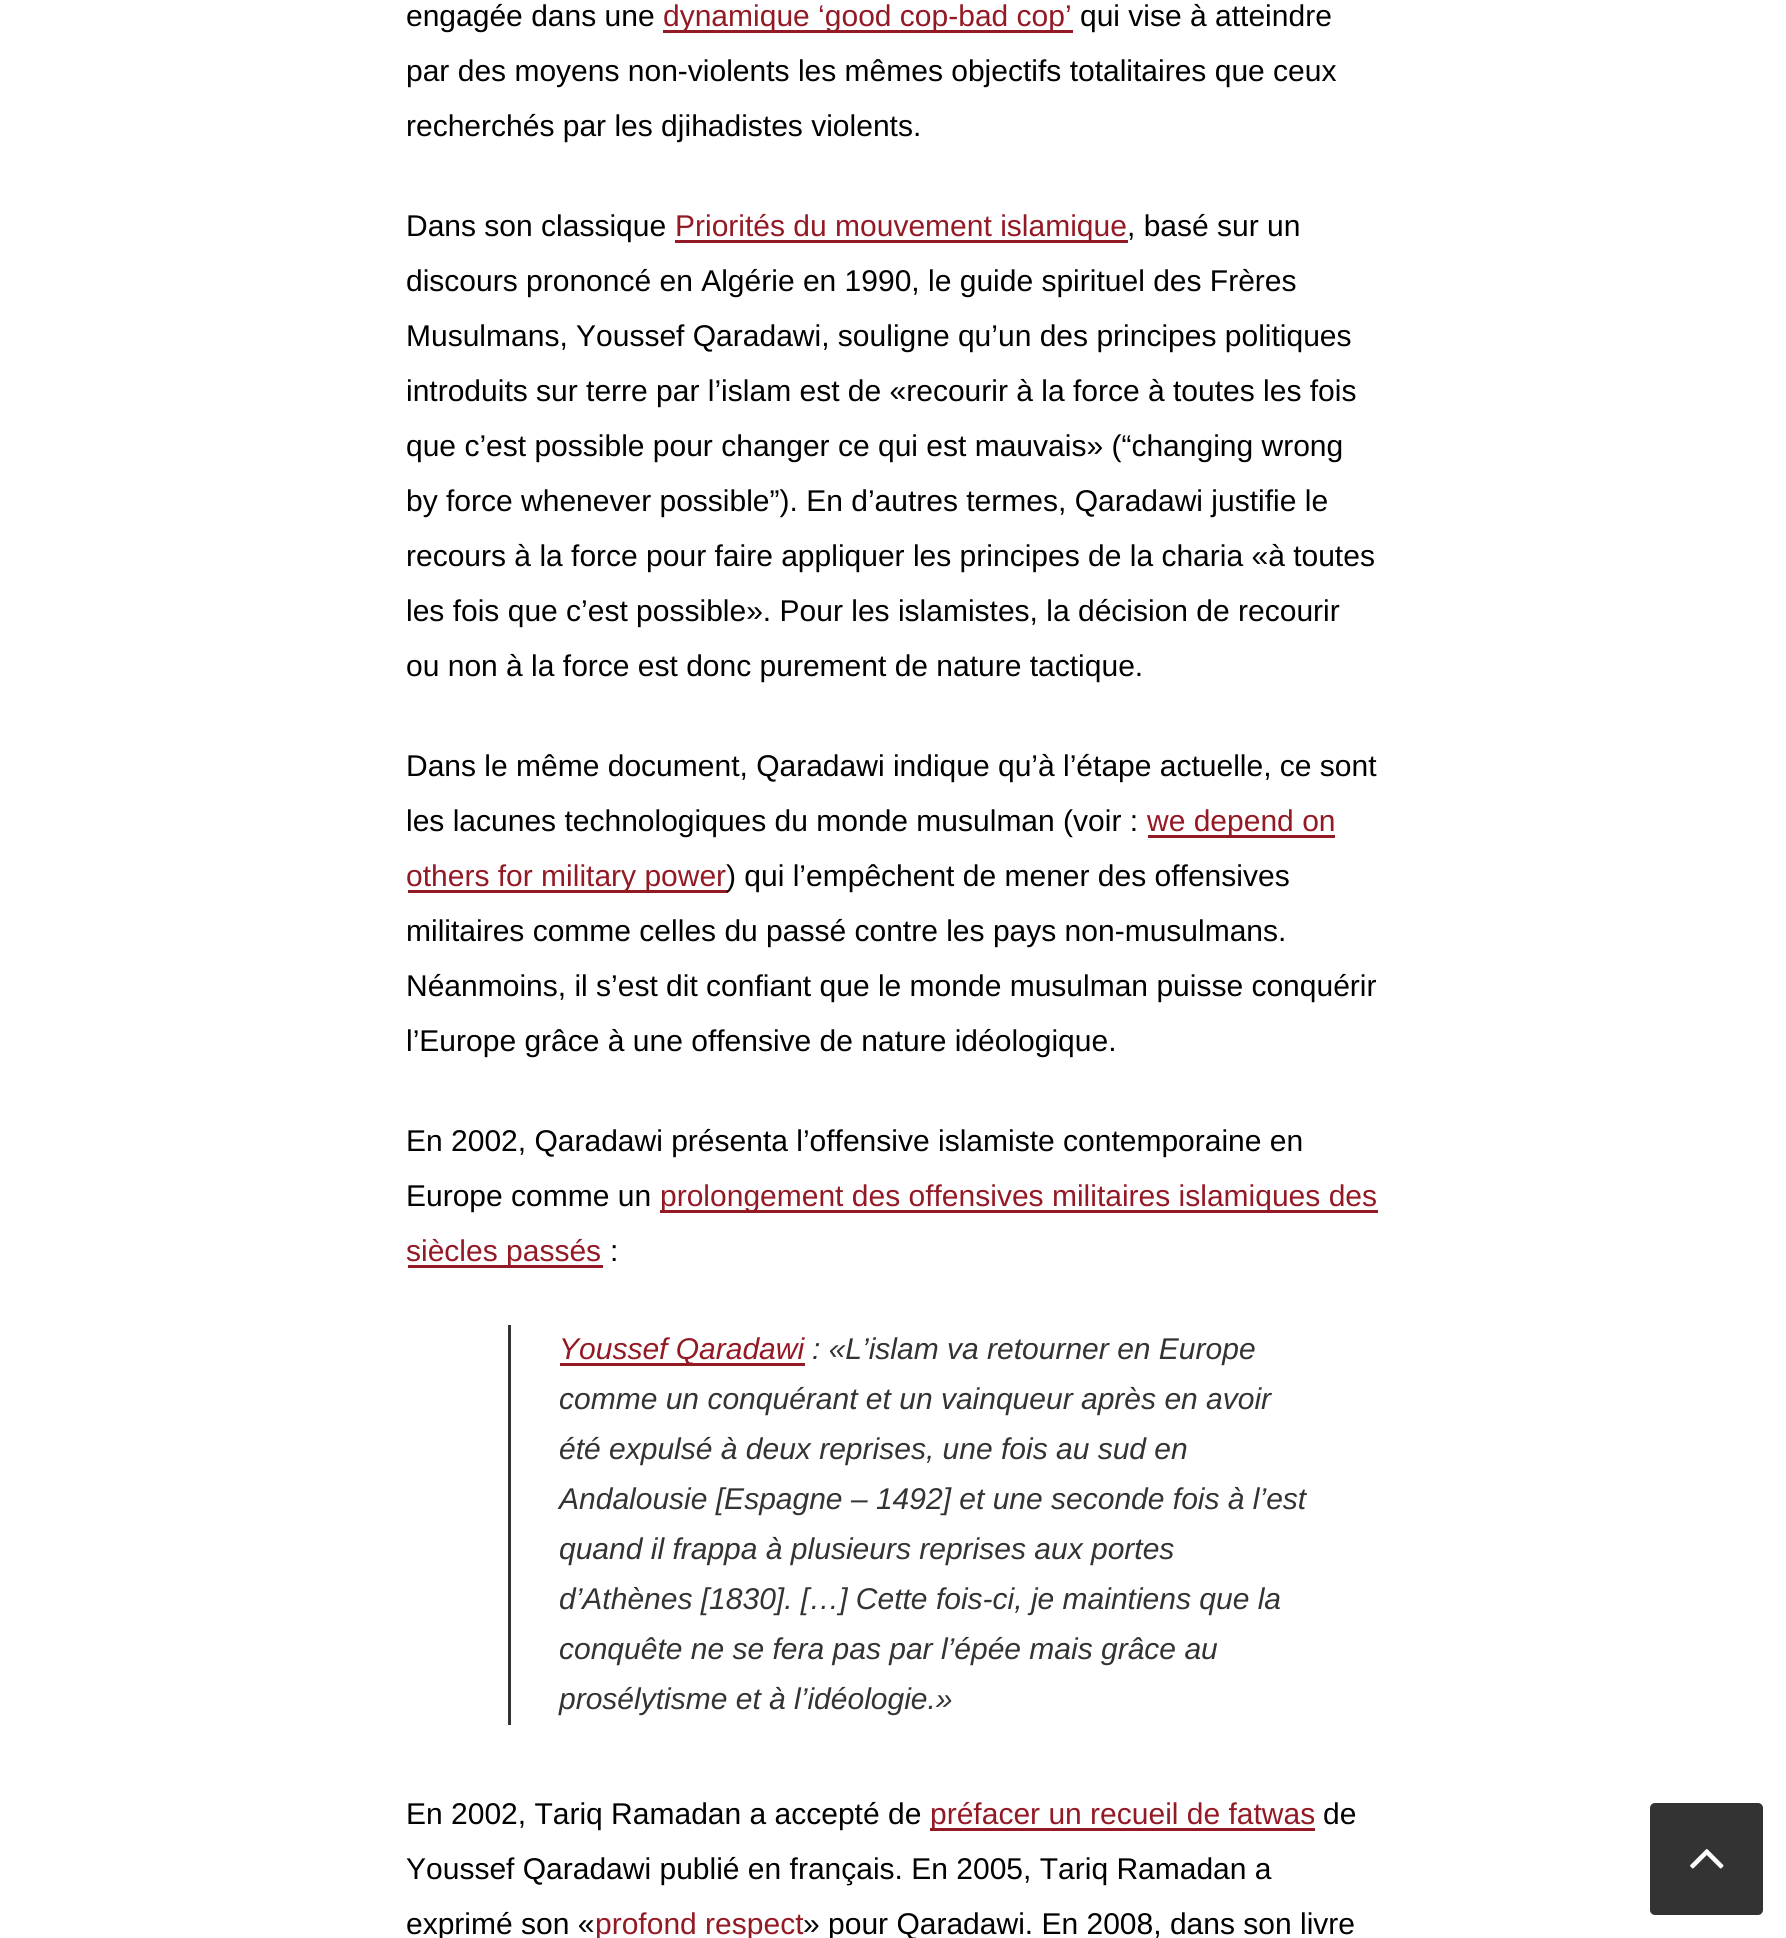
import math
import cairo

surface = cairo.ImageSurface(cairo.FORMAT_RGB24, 1786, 1938)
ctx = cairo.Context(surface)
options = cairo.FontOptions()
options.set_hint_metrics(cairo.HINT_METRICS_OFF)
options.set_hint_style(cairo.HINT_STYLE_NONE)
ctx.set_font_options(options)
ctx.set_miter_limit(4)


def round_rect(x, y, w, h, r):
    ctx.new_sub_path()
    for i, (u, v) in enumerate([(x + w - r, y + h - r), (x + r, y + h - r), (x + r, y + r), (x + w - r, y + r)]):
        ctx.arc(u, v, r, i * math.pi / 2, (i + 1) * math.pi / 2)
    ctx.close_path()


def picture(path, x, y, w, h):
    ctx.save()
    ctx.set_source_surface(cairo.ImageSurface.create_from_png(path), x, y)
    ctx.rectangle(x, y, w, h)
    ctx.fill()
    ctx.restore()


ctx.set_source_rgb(1, 1, 1)
ctx.paint()
ctx.select_font_face("Liberation Sans")
ctx.set_font_size(30)
ctx.set_source_rgb(0, 0, 0)
ctx.move_to(406, 26)
ctx.show_text("engagée dans une")
ctx.set_source_rgb(0.576, 0.098, 0.145)
ctx.rectangle(663, 30, 410, 3)
ctx.fill()
ctx.move_to(663, 26)
ctx.show_text("dynamique ‘good cop-bad cop’")
ctx.set_source_rgb(0, 0, 0)
ctx.move_to(1080, 26)
ctx.show_text("qui vise à atteindre")
ctx.move_to(406, 81)
ctx.show_text("par des moyens non-violents les mêmes objectifs totalitaires que ceux")
ctx.move_to(406, 136)
ctx.show_text("recherchés par les djihadistes violents.")
ctx.move_to(406, 236)
ctx.show_text("Dans son classique")
ctx.set_source_rgb(0.576, 0.098, 0.145)
ctx.rectangle(675, 240, 453, 3)
ctx.fill()
ctx.move_to(675, 236)
ctx.show_text("Priorités du mouvement islamique")
ctx.set_source_rgb(0, 0, 0)
ctx.move_to(1127, 236)
ctx.show_text(", basé sur un")
ctx.move_to(406, 291)
ctx.show_text("discours prononcé en Algérie en 1990, le guide spirituel des Frères")
ctx.move_to(406, 346)
ctx.show_text("Musulmans, Youssef Qaradawi, souligne qu’un des principes politiques")
ctx.move_to(406, 401)
ctx.show_text("introduits sur terre par l’islam est de «recourir à la force à toutes les fois")
ctx.move_to(406, 456)
ctx.show_text("que c’est possible pour changer ce qui est mauvais» (“changing wrong")
ctx.move_to(406, 511)
ctx.show_text("by force whenever possible”). En d’autres termes, Qaradawi justifie le")
ctx.move_to(406, 566)
ctx.show_text("recours à la force pour faire appliquer les principes de la charia «à toutes")
ctx.move_to(406, 621)
ctx.show_text("les fois que c’est possible». Pour les islamistes, la décision de recourir")
ctx.move_to(406, 676)
ctx.show_text("ou non à la force est donc purement de nature tactique.")
ctx.move_to(406, 776)
ctx.show_text("Dans le même document, Qaradawi indique qu’à l’étape actuelle, ce sont")
ctx.move_to(406, 831)
ctx.show_text("les lacunes technologiques du monde musulman (voir :")
ctx.set_source_rgb(0.576, 0.098, 0.145)
ctx.rectangle(1148, 835, 187, 3)
ctx.fill()
ctx.move_to(1147, 831)
ctx.show_text("we depend on")
ctx.rectangle(408, 890, 320, 3)
ctx.fill()
ctx.move_to(406, 886)
ctx.show_text("others for military power")
ctx.set_source_rgb(0, 0, 0)
ctx.move_to(726, 886)
ctx.show_text(") qui l’empêchent de mener des offensives")
ctx.move_to(406, 941)
ctx.show_text("militaires comme celles du passé contre les pays non-musulmans.")
ctx.move_to(406, 996)
ctx.show_text("Néanmoins, il s’est dit confiant que le monde musulman puisse conquérir")
ctx.move_to(406, 1051)
ctx.show_text("l’Europe grâce à une offensive de nature idéologique.")
ctx.move_to(406, 1151)
ctx.show_text("En 2002, Qaradawi présenta l’offensive islamiste contemporaine en")
ctx.move_to(406, 1206)
ctx.show_text("Europe comme un")
ctx.set_source_rgb(0.576, 0.098, 0.145)
ctx.rectangle(660, 1210, 718, 3)
ctx.fill()
ctx.move_to(660, 1206)
ctx.show_text("prolongement des offensives militaires islamiques des")
ctx.rectangle(408, 1265, 195, 3)
ctx.fill()
ctx.move_to(406, 1261)
ctx.show_text("siècles passés")
ctx.set_source_rgb(0, 0, 0)
ctx.move_to(610, 1261)
ctx.show_text(":")
ctx.set_source_rgb(0.2, 0.2, 0.2)
ctx.rectangle(508, 1325, 3, 400)
ctx.fill()
ctx.set_source_rgb(0.576, 0.098, 0.145)
ctx.rectangle(560, 1363, 245, 3)
ctx.fill()
ctx.select_font_face("Liberation Sans", cairo.FONT_SLANT_ITALIC)
ctx.move_to(559, 1359)
ctx.show_text("Youssef Qaradawi")
ctx.set_source_rgb(0.2, 0.2, 0.2)
ctx.move_to(812, 1359)
ctx.show_text(": «L’islam va retourner en Europe")
ctx.move_to(559, 1409)
ctx.show_text("comme un conquérant et un vainqueur après en avoir")
ctx.move_to(559, 1459)
ctx.show_text("été expulsé à deux reprises, une fois au sud en")
ctx.move_to(559, 1509)
ctx.show_text("Andalousie [Espagne – 1492] et une seconde fois à l’est")
ctx.move_to(559, 1559)
ctx.show_text("quand il frappa à plusieurs reprises aux portes")
ctx.move_to(559, 1609)
ctx.show_text("d’Athènes [1830]. […] Cette fois-ci, je maintiens que la")
ctx.move_to(559, 1659)
ctx.show_text("conquête ne se fera pas par l’épée mais grâce au")
ctx.move_to(559, 1709)
ctx.show_text("prosélytisme et à l’idéologie.»")
ctx.select_font_face("Liberation Sans")
ctx.set_source_rgb(0, 0, 0)
ctx.move_to(406, 1824)
ctx.show_text("En 2002, Tariq Ramadan a accepté de")
ctx.set_source_rgb(0.576, 0.098, 0.145)
ctx.rectangle(930, 1828, 385, 3)
ctx.fill()
ctx.move_to(930, 1824)
ctx.show_text("préfacer un recueil de fatwas")
ctx.set_source_rgb(0, 0, 0)
ctx.move_to(1323, 1824)
ctx.show_text("de")
ctx.move_to(406, 1879)
ctx.show_text("Youssef Qaradawi publié en français. En 2005, Tariq Ramadan a")
ctx.move_to(406, 1934)
ctx.show_text("exprimé son «")
ctx.set_source_rgb(0.576, 0.098, 0.145)
ctx.move_to(595, 1934)
ctx.show_text("profond respect")
ctx.set_source_rgb(0, 0, 0)
ctx.move_to(803, 1934)
ctx.show_text("» pour Qaradawi. En 2008, dans son livre")
ctx.set_source_rgb(0.2, 0.2, 0.2)
round_rect(1650, 1803, 113, 112, 5)
ctx.fill()
picture("img1.png", 1690, 1849, 34, 20)
surface.write_to_png("page.png")
